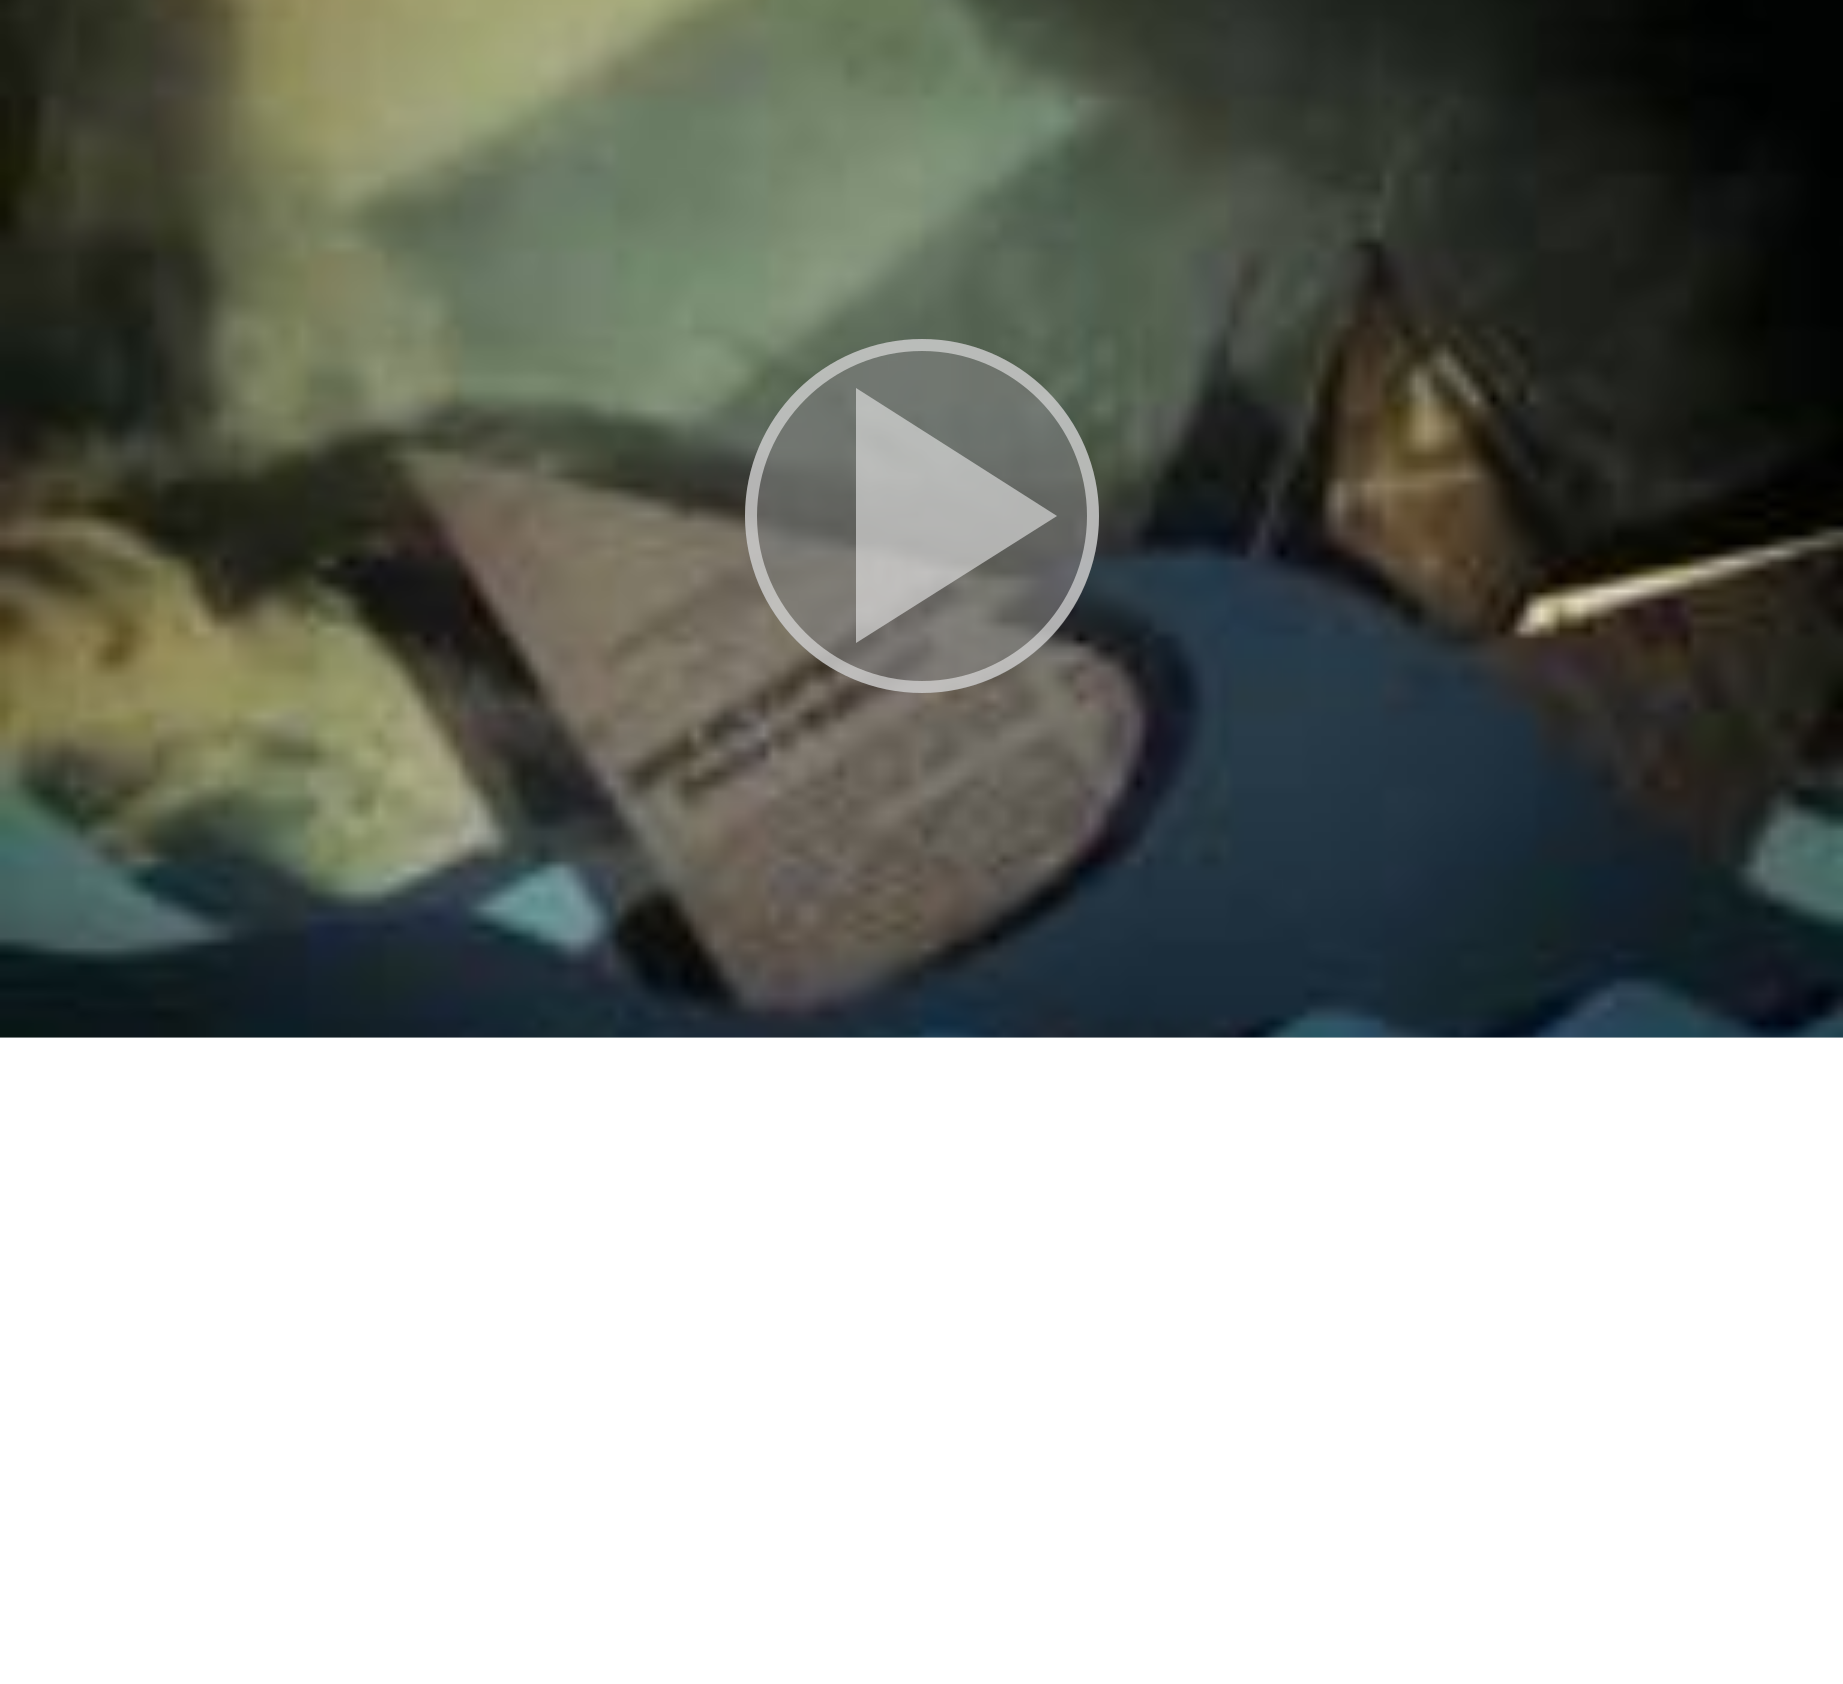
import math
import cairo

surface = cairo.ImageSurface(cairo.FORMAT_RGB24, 1843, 1684)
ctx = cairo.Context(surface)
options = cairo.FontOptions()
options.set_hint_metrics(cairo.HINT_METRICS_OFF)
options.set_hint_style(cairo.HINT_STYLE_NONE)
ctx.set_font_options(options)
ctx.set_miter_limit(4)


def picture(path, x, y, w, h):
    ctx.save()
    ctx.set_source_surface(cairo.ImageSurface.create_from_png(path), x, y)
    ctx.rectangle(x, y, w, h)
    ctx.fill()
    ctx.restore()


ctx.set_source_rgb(1, 1, 1)
ctx.paint()
ctx.set_source_rgb(0.894, 0.894, 0.894)
ctx.rectangle(0, 1037, 1843, 1)
ctx.fill()
picture("img1.png", 0, 0, 1843, 1038)
ctx.set_source_rgba(0.502, 0.502, 0.502, 0.6)
ctx.arc(922, 516, 177, 0, 2 * math.pi)
ctx.fill()
ctx.set_source_rgba(0.922, 0.922, 0.922, 0.6)
ctx.set_fill_rule(cairo.FILL_RULE_EVEN_ODD)
ctx.new_path()
ctx.move_to(922, 339)
ctx.curve_to(1019, 339, 1099, 418, 1099, 516)
ctx.curve_to(1099, 613, 1019, 693, 922, 693)
ctx.curve_to(824, 693, 745, 613, 745, 516)
ctx.curve_to(745, 418, 824, 339, 922, 339)
ctx.close_path()
ctx.move_to(922, 351)
ctx.curve_to(1013, 351, 1087, 425, 1087, 516)
ctx.curve_to(1087, 607, 1013, 681, 922, 681)
ctx.curve_to(831, 681, 757, 607, 757, 516)
ctx.curve_to(757, 425, 831, 351, 922, 351)
ctx.close_path()
ctx.fill()
ctx.new_path()
ctx.move_to(1057, 516)
ctx.line_to(856, 643)
ctx.line_to(856, 388)
ctx.close_path()
ctx.fill()
surface.write_to_png("page.png")
